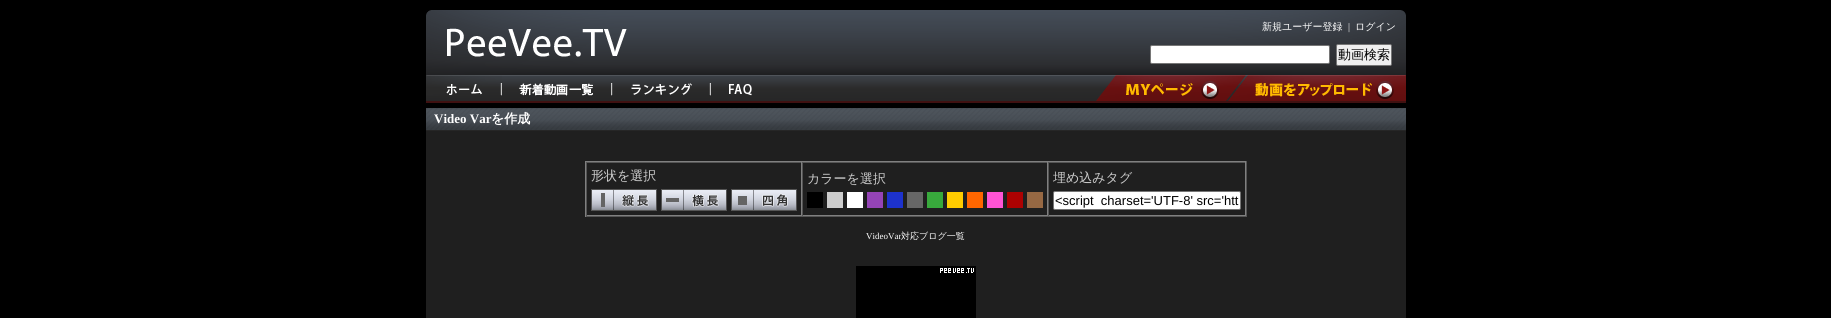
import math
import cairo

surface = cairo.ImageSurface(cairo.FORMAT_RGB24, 1831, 318)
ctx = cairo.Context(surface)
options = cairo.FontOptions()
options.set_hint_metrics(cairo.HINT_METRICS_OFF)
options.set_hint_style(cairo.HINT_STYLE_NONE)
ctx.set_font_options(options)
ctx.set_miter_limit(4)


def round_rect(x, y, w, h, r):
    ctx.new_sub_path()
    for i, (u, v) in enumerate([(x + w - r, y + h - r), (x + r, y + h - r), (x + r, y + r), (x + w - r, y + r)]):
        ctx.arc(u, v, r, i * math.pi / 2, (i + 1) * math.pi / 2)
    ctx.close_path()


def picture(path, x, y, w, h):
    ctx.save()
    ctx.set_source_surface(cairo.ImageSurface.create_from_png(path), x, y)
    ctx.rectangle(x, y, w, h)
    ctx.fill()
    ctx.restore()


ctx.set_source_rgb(0, 0, 0)
ctx.paint()
picture("img1.png", 426, 10, 215, 65)
picture("img2.png", 641, 10, 765, 65)
ctx.select_font_face("WenQuanYi Zen Hei Medium")
ctx.set_font_size(10)
ctx.set_source_rgb(1, 1, 1)
ctx.move_to(1262, 30)
ctx.show_text("新規ユーザー登録")
ctx.select_font_face("Liberation Serif")
ctx.move_to(1348, 30)
ctx.show_text("|")
ctx.select_font_face("WenQuanYi Zen Hei Medium")
ctx.move_to(1355, 30)
ctx.show_text("ログイン")
round_rect(1150.5, 45.5, 179, 18, 1.5)
ctx.fill_preserve()
ctx.set_source_rgb(0.463, 0.463, 0.463)
ctx.set_line_width(1)
ctx.stroke()
ctx.set_source_rgb(0.937, 0.937, 0.937)
round_rect(1336.5, 44.5, 55, 21, 1.5)
ctx.fill_preserve()
ctx.set_source_rgb(0.463, 0.463, 0.463)
ctx.stroke()
ctx.set_font_size(13)
ctx.set_source_rgb(0, 0, 0)
ctx.move_to(1338, 59)
ctx.show_text("動画検索")
picture("img3.png", 426, 75, 980, 28)
picture("img4.png", 426, 75, 76, 21)
picture("img5.png", 519, 83, 94, 13)
picture("img6.png", 631, 83, 80, 13)
picture("img7.png", 729, 84, 23, 12)
picture("img8.png", 1096, 75, 140, 26)
picture("img9.png", 1236, 75, 170, 26)
ctx.set_source_rgb(0.122, 0.122, 0.122)
ctx.rectangle(426, 131, 980, 187)
ctx.fill()
picture("img10.png", 426, 108, 980, 22)
ctx.set_source_rgb(0.149, 0.149, 0.149)
ctx.rectangle(426, 130, 980, 1)
ctx.fill()
ctx.select_font_face("Liberation Serif", cairo.FONT_SLANT_NORMAL, cairo.FONT_WEIGHT_BOLD)
ctx.set_source_rgb(1, 1, 1)
ctx.move_to(434, 123)
ctx.show_text("Video Var")
ctx.select_font_face("WenQuanYi Zen Hei", cairo.FONT_SLANT_NORMAL, cairo.FONT_WEIGHT_BOLD)
ctx.move_to(491, 123)
ctx.show_text("を作成")
ctx.set_source_rgb(0.502, 0.502, 0.502)
ctx.rectangle(585, 161, 662, 1)
ctx.fill()
ctx.set_source_rgb(0.333, 0.333, 0.333)
ctx.rectangle(1246, 161, 1, 56)
ctx.fill()
ctx.rectangle(585, 216, 662, 1)
ctx.fill()
ctx.set_source_rgb(0.502, 0.502, 0.502)
ctx.rectangle(585, 161, 1, 56)
ctx.fill()
ctx.set_source_rgb(0.333, 0.333, 0.333)
ctx.rectangle(586, 162, 660, 1)
ctx.fill()
ctx.set_source_rgb(0.502, 0.502, 0.502)
ctx.rectangle(801, 162, 1, 54)
ctx.fill()
ctx.rectangle(586, 215, 216, 1)
ctx.fill()
ctx.set_source_rgb(0.333, 0.333, 0.333)
ctx.rectangle(586, 162, 1, 54)
ctx.fill()
ctx.select_font_face("WenQuanYi Zen Hei Medium")
ctx.set_source_rgb(0.8, 0.8, 0.8)
ctx.move_to(591, 180)
ctx.show_text("形状を選択")
picture("img11.png", 591, 189, 66, 22)
picture("img12.png", 661, 189, 66, 22)
picture("img13.png", 731, 189, 66, 22)
ctx.set_source_rgb(0.502, 0.502, 0.502)
ctx.rectangle(1047, 162, 1, 54)
ctx.fill()
ctx.rectangle(802, 215, 246, 1)
ctx.fill()
ctx.set_source_rgb(0.333, 0.333, 0.333)
ctx.rectangle(802, 162, 1, 54)
ctx.fill()
ctx.set_source_rgb(0.8, 0.8, 0.8)
ctx.move_to(807, 183)
ctx.show_text("カラーを選択")
ctx.set_source_rgb(0, 0, 0)
ctx.rectangle(807, 192, 16, 16)
ctx.fill()
ctx.set_source_rgb(0.8, 0.8, 0.8)
ctx.rectangle(827, 192, 16, 16)
ctx.fill()
ctx.set_source_rgb(1, 1, 1)
ctx.rectangle(847, 192, 16, 16)
ctx.fill()
ctx.set_source_rgb(0.584, 0.267, 0.718)
ctx.rectangle(867, 192, 16, 16)
ctx.fill()
ctx.set_source_rgb(0.114, 0.196, 0.804)
ctx.rectangle(887, 192, 16, 16)
ctx.fill()
ctx.set_source_rgb(0.4, 0.4, 0.4)
ctx.rectangle(907, 192, 16, 16)
ctx.fill()
ctx.set_source_rgb(0.22, 0.663, 0.235)
ctx.rectangle(927, 192, 16, 16)
ctx.fill()
ctx.set_source_rgb(1, 0.8, 0)
ctx.rectangle(947, 192, 16, 16)
ctx.fill()
ctx.set_source_rgb(1, 0.4, 0)
ctx.rectangle(967, 192, 16, 16)
ctx.fill()
ctx.set_source_rgb(1, 0.329, 0.835)
ctx.rectangle(987, 192, 16, 16)
ctx.fill()
ctx.set_source_rgb(0.675, 0.008, 0.008)
ctx.rectangle(1007, 192, 16, 16)
ctx.fill()
ctx.set_source_rgb(0.588, 0.408, 0.263)
ctx.rectangle(1027, 192, 16, 16)
ctx.fill()
ctx.set_source_rgb(0.502, 0.502, 0.502)
ctx.rectangle(1245, 162, 1, 54)
ctx.fill()
ctx.rectangle(1048, 215, 198, 1)
ctx.fill()
ctx.set_source_rgb(0.333, 0.333, 0.333)
ctx.rectangle(1048, 162, 1, 54)
ctx.fill()
ctx.set_source_rgb(0.8, 0.8, 0.8)
ctx.move_to(1053, 182)
ctx.show_text("埋め込みタグ")
ctx.set_source_rgb(1, 1, 1)
round_rect(1053.5, 191.5, 187, 18, 1.5)
ctx.fill_preserve()
ctx.set_source_rgb(0.463, 0.463, 0.463)
ctx.stroke()
ctx.select_font_face("Liberation Sans")
ctx.set_source_rgb(0, 0, 0)
ctx.move_to(1055, 205)
ctx.show_text("<script  charset='UTF-8' src='htt")
ctx.select_font_face("Liberation Serif")
ctx.set_font_size(9)
ctx.set_source_rgb(1, 1, 1)
ctx.move_to(866, 239)
ctx.show_text("VideoVar")
ctx.select_font_face("WenQuanYi Zen Hei Medium")
ctx.move_to(901, 239)
ctx.show_text("対応ブログ一覧")
ctx.set_source_rgb(0, 0, 0)
ctx.rectangle(856, 266, 120, 52)
ctx.fill()
picture("img14.png", 940, 268, 34, 5)
surface.write_to_png("page.png")
